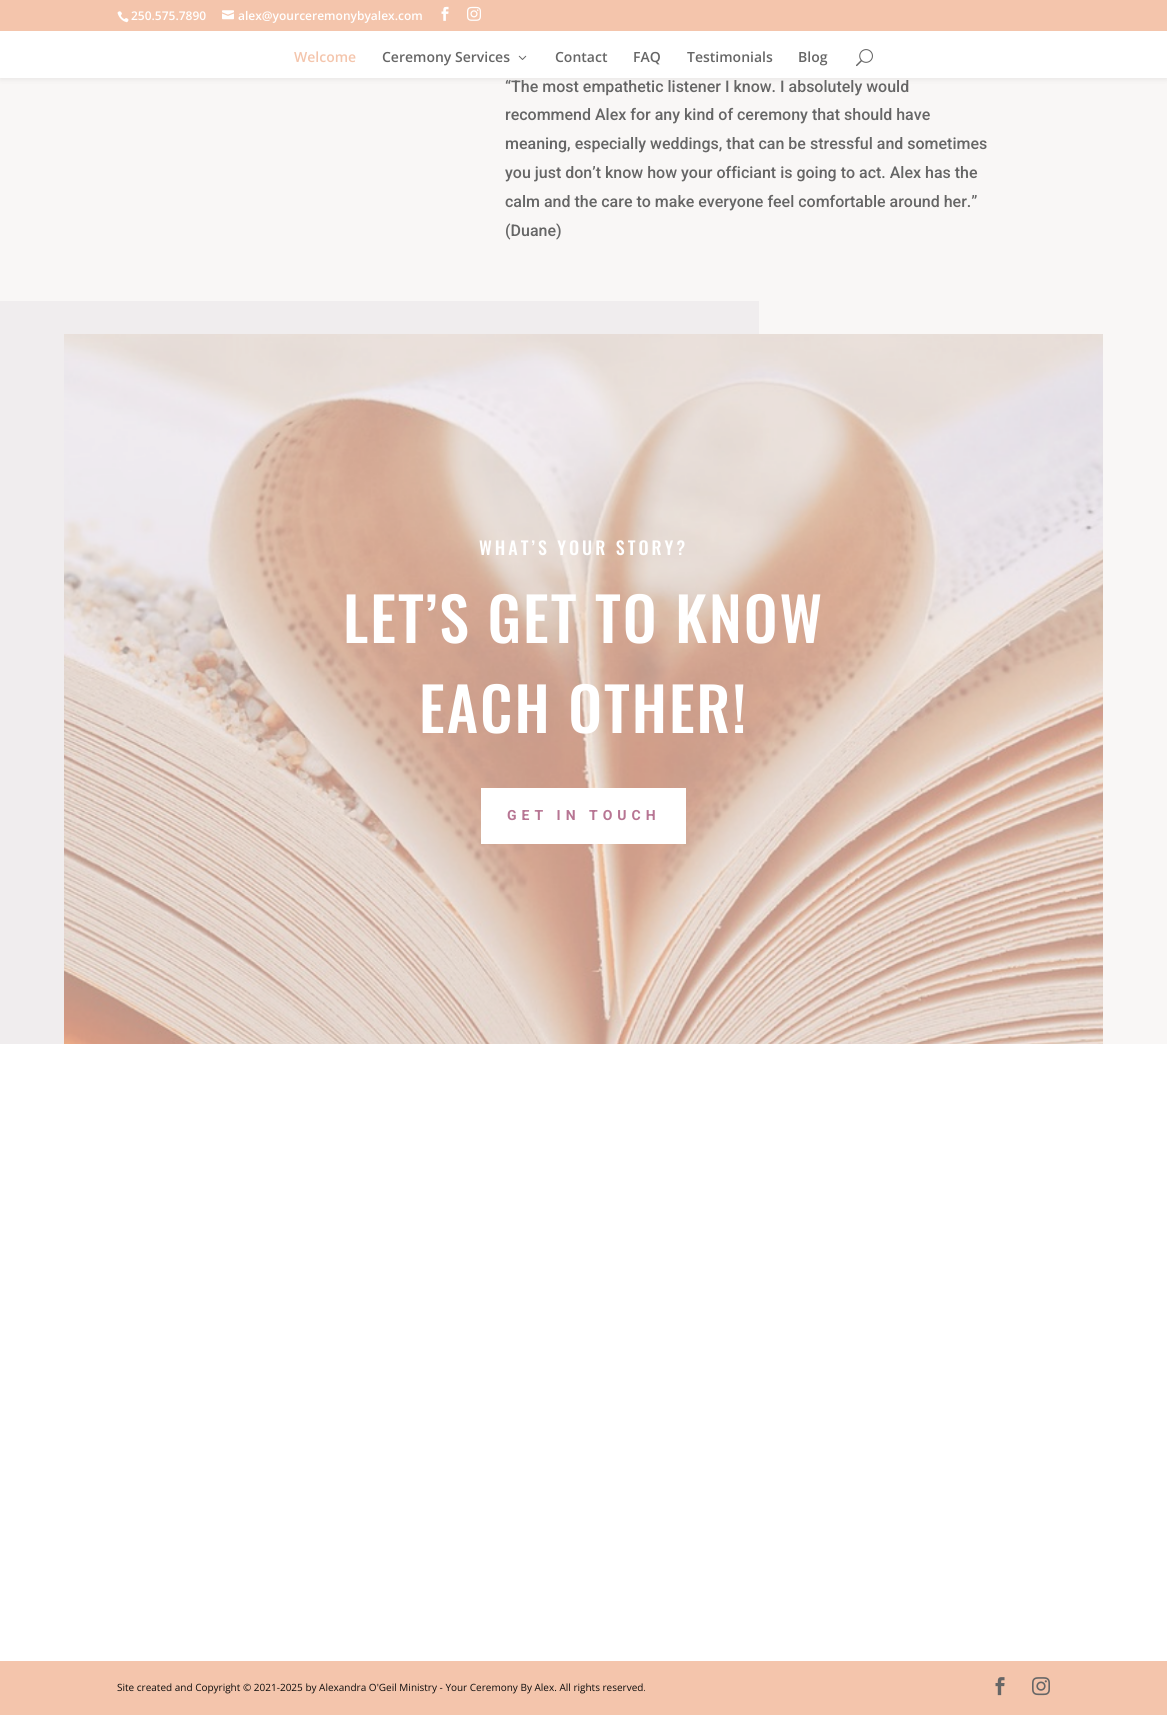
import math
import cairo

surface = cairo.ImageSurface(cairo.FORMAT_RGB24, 1167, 1715)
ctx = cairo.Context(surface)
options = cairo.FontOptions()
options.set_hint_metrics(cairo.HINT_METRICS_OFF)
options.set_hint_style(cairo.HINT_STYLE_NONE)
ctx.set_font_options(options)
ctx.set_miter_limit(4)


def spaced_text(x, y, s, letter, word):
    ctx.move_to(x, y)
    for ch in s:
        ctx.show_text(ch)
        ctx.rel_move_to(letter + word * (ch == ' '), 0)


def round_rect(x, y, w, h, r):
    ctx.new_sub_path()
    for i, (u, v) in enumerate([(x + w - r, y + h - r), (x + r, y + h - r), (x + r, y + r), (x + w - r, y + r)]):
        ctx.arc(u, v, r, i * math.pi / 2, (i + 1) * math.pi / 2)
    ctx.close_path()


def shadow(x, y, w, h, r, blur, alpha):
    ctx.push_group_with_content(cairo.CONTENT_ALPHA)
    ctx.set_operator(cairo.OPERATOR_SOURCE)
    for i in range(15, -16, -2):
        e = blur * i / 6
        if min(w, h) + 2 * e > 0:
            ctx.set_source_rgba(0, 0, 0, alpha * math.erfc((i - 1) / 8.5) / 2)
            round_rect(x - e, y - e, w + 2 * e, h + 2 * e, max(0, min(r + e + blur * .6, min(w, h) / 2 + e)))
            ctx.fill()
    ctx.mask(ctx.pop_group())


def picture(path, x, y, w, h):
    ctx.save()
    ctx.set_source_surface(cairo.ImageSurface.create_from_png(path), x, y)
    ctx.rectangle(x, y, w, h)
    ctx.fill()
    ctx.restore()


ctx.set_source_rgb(1, 1, 1)
ctx.paint()
ctx.set_source_rgb(0.976, 0.965, 0.961)
ctx.rectangle(0, 78, 1167, 223)
ctx.fill()
ctx.set_source_rgb(0, 0, 0)
shadow(0, 31, 1167, 47, 0, 3.5, 0.1)
ctx.set_source_rgb(0.957, 0.773, 0.675)
ctx.rectangle(0, 0, 1167, 31)
ctx.fill()
picture("img1.png", 117, 11, 12, 12)
ctx.select_font_face("Open Sans SemiBold")
ctx.set_font_size(12)
ctx.set_source_rgb(1, 1, 1)
ctx.move_to(131, 20)
ctx.show_text("250.575.7890")
picture("img2.png", 222, 10, 12, 10)
ctx.move_to(238, 20)
ctx.show_text("alex@yourceremonybyalex.com")
picture("img3.png", 441, 6, 8, 15)
picture("img4.png", 467, 6, 14, 15)
ctx.rectangle(0, 31, 1167, 47)
ctx.fill()
ctx.set_font_size(14)
ctx.set_source_rgb(0.957, 0.773, 0.675)
ctx.move_to(294, 62)
ctx.show_text("Welcome")
ctx.set_source_rgb(0.4, 0.4, 0.4)
ctx.move_to(382, 62)
ctx.show_text("Ceremony Services")
picture("img5.png", 518, 55, 9, 5)
ctx.move_to(555, 62)
ctx.show_text("Contact")
ctx.move_to(633, 62)
ctx.show_text("FAQ")
ctx.move_to(687, 62)
ctx.show_text("Testimonials")
ctx.move_to(798, 62)
ctx.show_text("Blog")
picture("img6.png", 856, 49, 17, 18)
ctx.select_font_face("Roboto Medium")
ctx.set_font_size(16)
ctx.move_to(505, 92)
ctx.show_text("“The most empathetic listener I know. I absolutely would")
ctx.move_to(505, 120)
ctx.show_text("recommend Alex for any kind of ceremony that should have")
ctx.move_to(505, 149)
ctx.show_text("meaning, especially weddings, that can be stressful and sometimes")
ctx.move_to(505, 178)
ctx.show_text("you just don’t know how your officiant is going to act. Alex has the")
ctx.move_to(505, 207)
ctx.show_text("calm and the care to make everyone feel comfortable around her.”")
ctx.move_to(505, 236)
ctx.show_text("(Duane)")
ctx.set_source_rgb(0.941, 0.929, 0.933)
ctx.rectangle(0, 301, 759, 743)
ctx.fill()
ctx.set_source_rgb(0.976, 0.965, 0.961)
ctx.rectangle(759, 301, 408, 743)
ctx.fill()
picture("img7.png", 64, 334, 1039, 710)
ctx.select_font_face("Oswald Medium")
ctx.set_font_size(18)
ctx.set_source_rgb(1, 1, 1)
spaced_text(479, 555, "WHAT’S YOUR STORY?", 3, 0)
ctx.set_font_size(60)
spaced_text(343, 643, "LET’S GET TO KNOW", 2, 0)
spaced_text(419, 733, "EACH OTHER!", 2, 0)
ctx.rectangle(481, 788, 205, 56)
ctx.fill()
ctx.select_font_face("Roboto", cairo.FONT_SLANT_NORMAL, cairo.FONT_WEIGHT_BOLD)
ctx.set_font_size(14)
ctx.set_source_rgb(0.718, 0.459, 0.576)
spaced_text(507, 820, "GET IN TOUCH", 5, 0)
ctx.set_source_rgb(0.957, 0.773, 0.675)
ctx.rectangle(0, 1661, 1167, 54)
ctx.fill()
ctx.select_font_face("Open Sans")
ctx.set_font_size(10)
ctx.set_source_rgb(0.047, 0.047, 0.047)
ctx.move_to(117, 1691)
ctx.show_text("Site created and Copyright © 2021-2025 by Alexandra O'Geil Ministry - Your Ceremony By Alex. All rights reserved.")
picture("img8.png", 995, 1677, 10, 19)
picture("img9.png", 1032, 1677, 18, 19)
surface.write_to_png("page.png")
